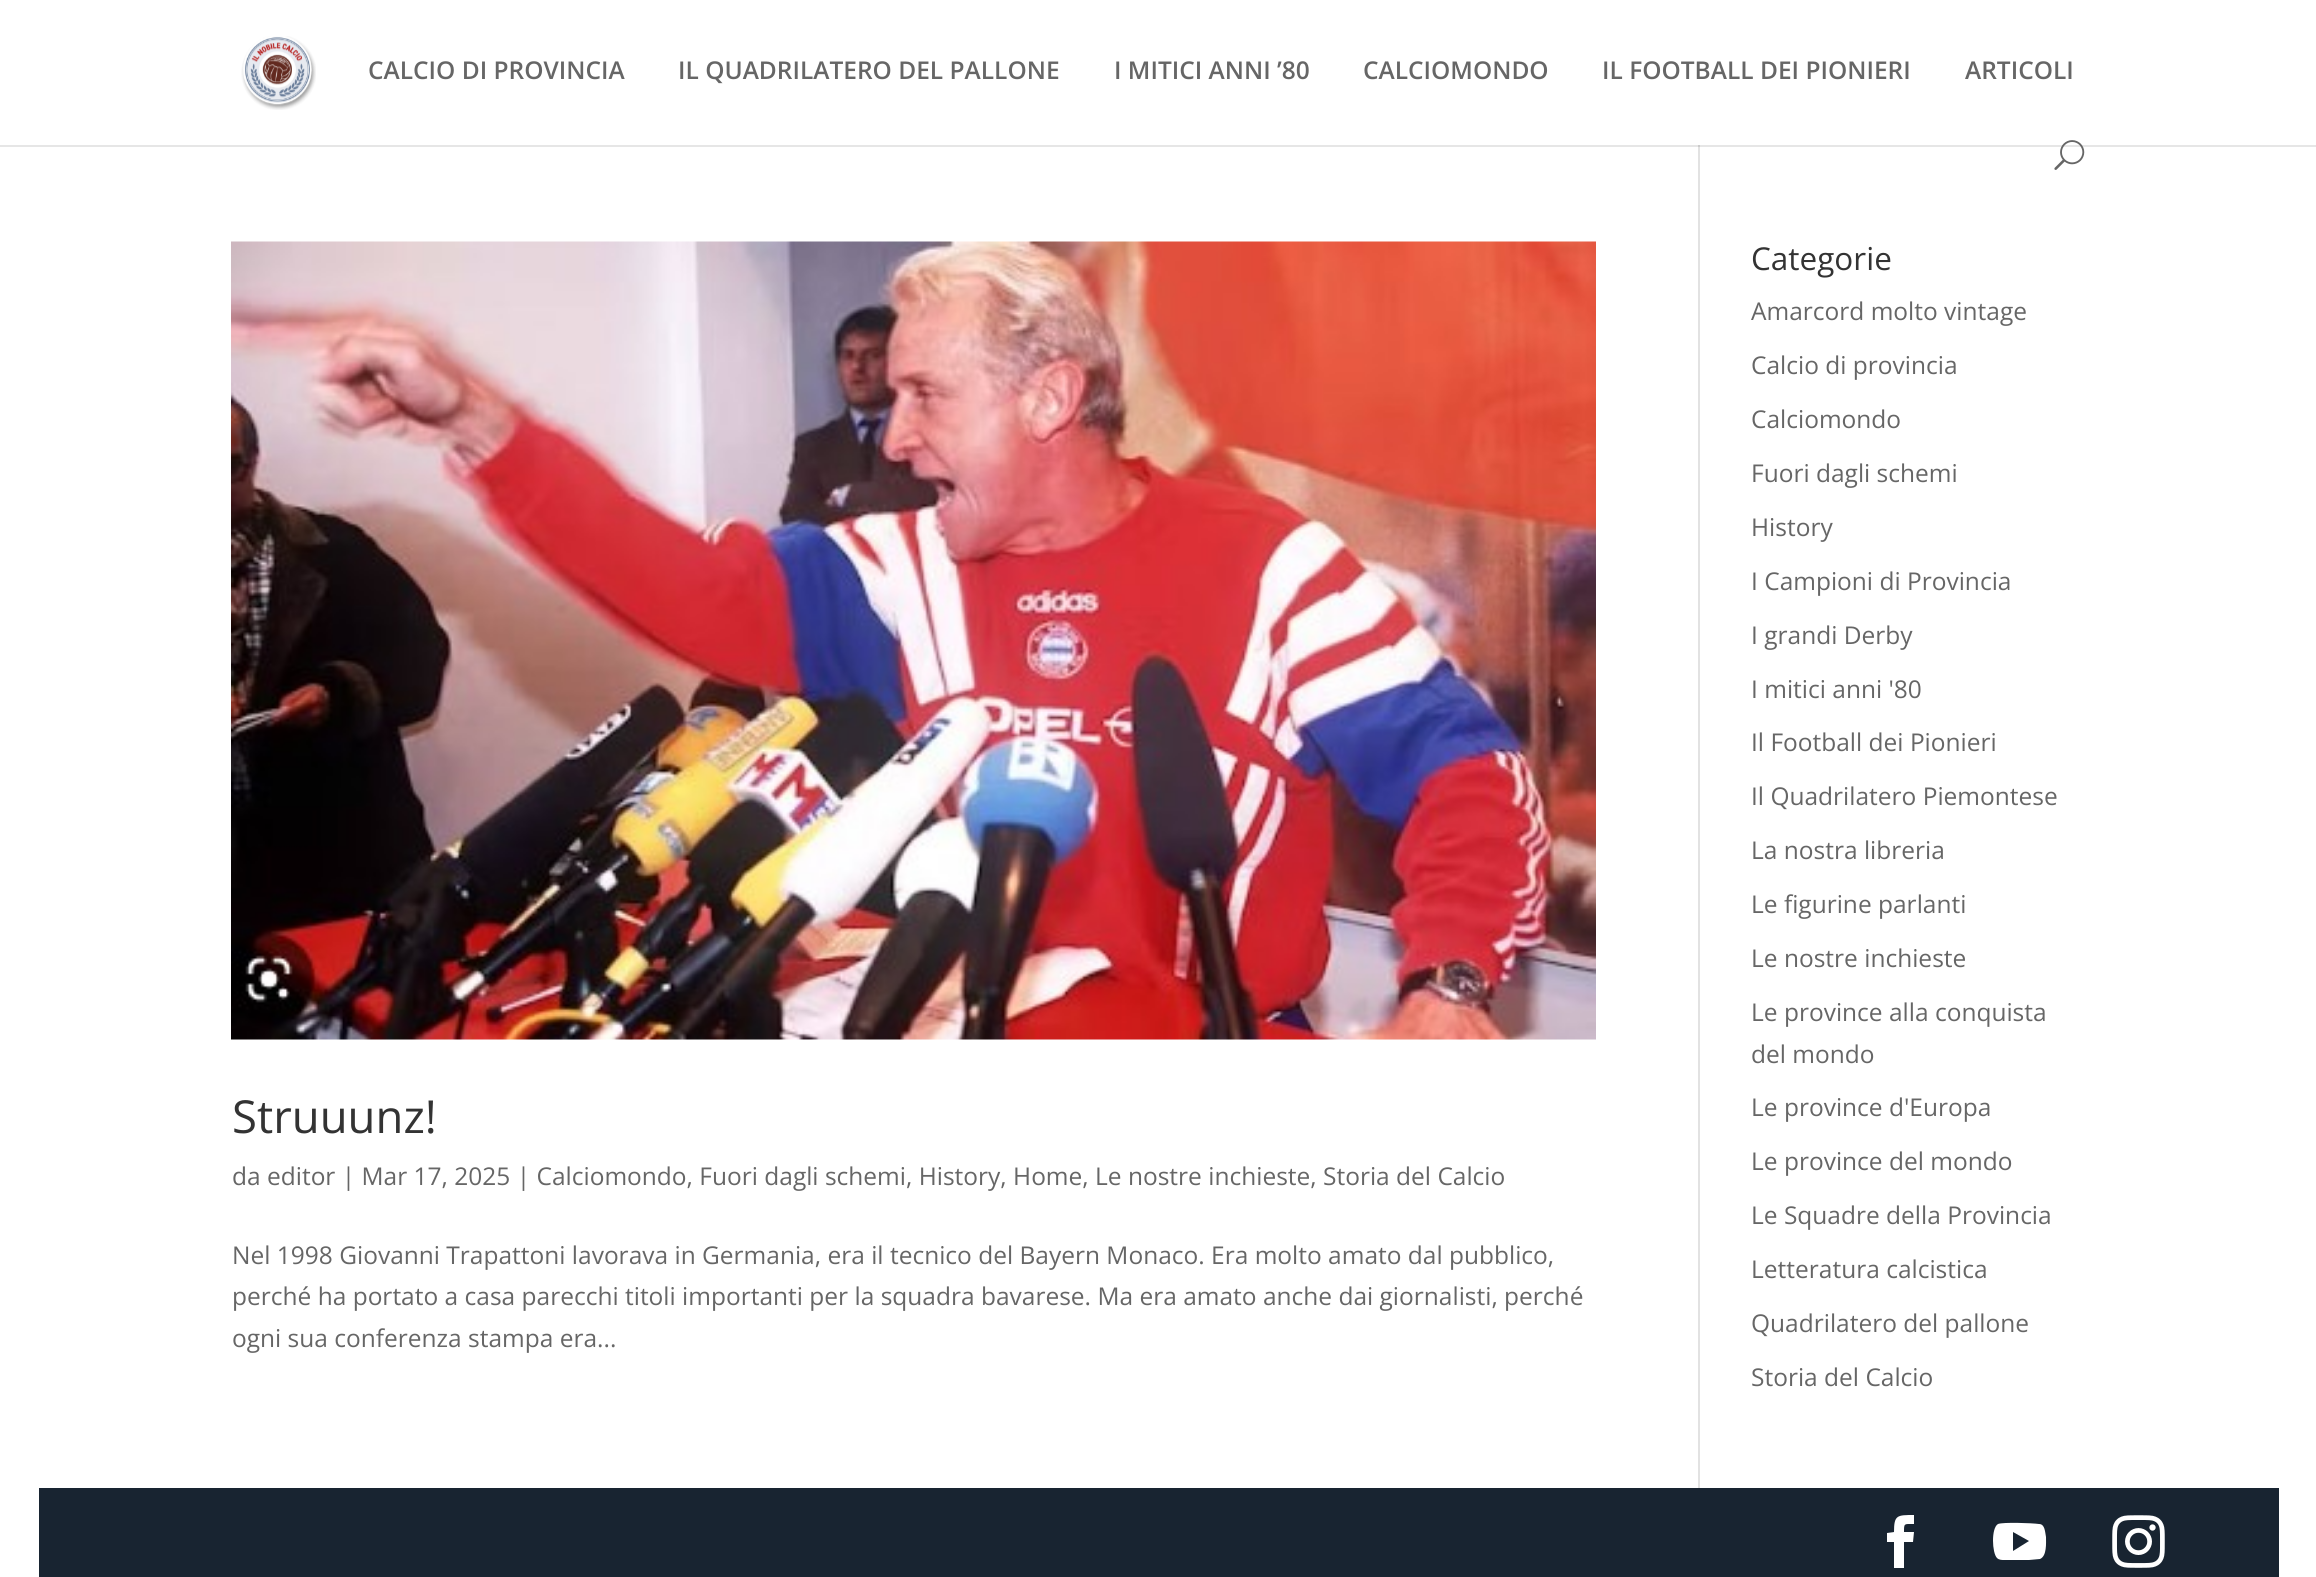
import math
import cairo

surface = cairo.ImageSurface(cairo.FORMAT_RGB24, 2316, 1577)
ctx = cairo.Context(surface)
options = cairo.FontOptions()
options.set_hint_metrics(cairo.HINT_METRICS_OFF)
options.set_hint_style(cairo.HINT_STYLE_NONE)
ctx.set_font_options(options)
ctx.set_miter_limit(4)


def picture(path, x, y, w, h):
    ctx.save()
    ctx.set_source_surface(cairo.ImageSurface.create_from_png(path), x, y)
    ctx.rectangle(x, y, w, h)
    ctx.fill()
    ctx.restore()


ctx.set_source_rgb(1, 1, 1)
ctx.paint()
ctx.set_source_rgb(0.902, 0.902, 0.902)
ctx.rectangle(0, 145, 2316, 2)
ctx.fill()
ctx.set_source_rgb(0.886, 0.886, 0.886)
ctx.rectangle(1698, 140, 2, 1348)
ctx.fill()
ctx.set_source_rgb(1, 1, 1)
ctx.rectangle(1698, 140, 2, 5)
ctx.fill()
picture("img1.png", 241, 36, 75, 74)
ctx.select_font_face("Open Sans SemiBold")
ctx.set_font_size(24.5)
ctx.set_source_rgb(0.4, 0.4, 0.4)
ctx.move_to(368, 79)
ctx.show_text("CALCIO DI PROVINCIA")
ctx.move_to(678, 79)
ctx.show_text("IL QUADRILATERO DEL PALLONE")
ctx.move_to(1114, 79)
ctx.show_text("I MITICI ANNI ’80")
ctx.move_to(1363, 79)
ctx.show_text("CALCIOMONDO")
ctx.move_to(1602, 79)
ctx.show_text("IL FOOTBALL DEI PIONIERI")
ctx.move_to(1965, 79)
ctx.show_text("ARTICOLI")
picture("img2.png", 2054, 140, 31, 30)
ctx.set_source_rgb(0.796, 0.796, 0.796)
ctx.rectangle(1698, 145, 2, 2)
ctx.fill()
picture("img3.png", 231, 241, 1365, 799)
ctx.select_font_face("Open Sans")
ctx.set_font_size(45.5)
ctx.set_source_rgb(0.2, 0.2, 0.2)
ctx.move_to(232, 1133)
ctx.show_text("Struuunz!")
ctx.set_font_size(24.5)
ctx.set_source_rgb(0.4, 0.4, 0.4)
ctx.move_to(232, 1185)
ctx.show_text("da editor | Mar 17, 2025 | Calciomondo, Fuori dagli schemi, History, Home, Le nostre inchieste, Storia del Calcio")
ctx.move_to(232, 1264)
ctx.show_text("Nel 1998 Giovanni Trapattoni lavorava in Germania, era il tecnico del Bayern Monaco. Era molto amato dal pubblico,")
ctx.move_to(232, 1305)
ctx.show_text("perché ha portato a casa parecchi titoli importanti per la squadra bavarese. Ma era amato anche dai giornalisti, perché")
ctx.move_to(232, 1347)
ctx.show_text("ogni sua conferenza stampa era...")
ctx.set_font_size(31.5)
ctx.set_source_rgb(0.2, 0.2, 0.2)
ctx.move_to(1751, 270)
ctx.show_text("Categorie")
ctx.set_font_size(24.5)
ctx.set_source_rgb(0.4, 0.4, 0.4)
ctx.move_to(1751, 320)
ctx.show_text("Amarcord molto vintage")
ctx.move_to(1751, 374)
ctx.show_text("Calcio di provincia")
ctx.move_to(1751, 428)
ctx.show_text("Calciomondo")
ctx.move_to(1751, 482)
ctx.show_text("Fuori dagli schemi")
ctx.move_to(1751, 536)
ctx.show_text("History")
ctx.move_to(1751, 590)
ctx.show_text("I Campioni di Provincia")
ctx.move_to(1751, 644)
ctx.show_text("I grandi Derby")
ctx.move_to(1751, 698)
ctx.show_text("I mitici anni '80")
ctx.move_to(1751, 751)
ctx.show_text("Il Football dei Pionieri")
ctx.move_to(1751, 805)
ctx.show_text("Il Quadrilatero Piemontese")
ctx.move_to(1751, 859)
ctx.show_text("La nostra libreria")
ctx.move_to(1751, 913)
ctx.show_text("Le figurine parlanti")
ctx.move_to(1751, 967)
ctx.show_text("Le nostre inchieste")
ctx.move_to(1751, 1021)
ctx.show_text("Le province alla conquista")
ctx.move_to(1751, 1063)
ctx.show_text("del mondo")
ctx.move_to(1751, 1116)
ctx.show_text("Le province d'Europa")
ctx.move_to(1751, 1170)
ctx.show_text("Le province del mondo")
ctx.move_to(1751, 1224)
ctx.show_text("Le Squadre della Provincia")
ctx.move_to(1751, 1278)
ctx.show_text("Letteratura calcistica")
ctx.move_to(1751, 1332)
ctx.show_text("Quadrilatero del pallone")
ctx.move_to(1751, 1386)
ctx.show_text("Storia del Calcio")
ctx.set_source_rgb(0.094, 0.141, 0.192)
ctx.rectangle(39, 1488, 2240, 89)
ctx.fill()
ctx.set_source_rgb(1, 1, 1)
ctx.new_path()
ctx.move_to(1894, 1568)
ctx.line_to(1904, 1568)
ctx.line_to(1904, 1542)
ctx.line_to(1913, 1542)
ctx.line_to(1914, 1532)
ctx.line_to(1904, 1532)
ctx.curve_to(1904, 1523, 1904, 1524, 1914, 1524)
ctx.line_to(1914, 1515)
ctx.curve_to(1897, 1515, 1894, 1515, 1894, 1532)
ctx.line_to(1887, 1533)
ctx.line_to(1887, 1542)
ctx.line_to(1894, 1542)
ctx.close_path()
ctx.fill()
ctx.new_path()
ctx.move_to(2039, 1524)
ctx.curve_to(2032, 1523, 2003, 1522, 1998, 1524)
ctx.curve_to(1991, 1528, 1992, 1553, 1997, 1558)
ctx.curve_to(1999, 1560, 2002, 1560, 2004, 1560)
ctx.line_to(2029, 1560)
ctx.line_to(2040, 1559)
ctx.curve_to(2047, 1556, 2046, 1543, 2046, 1537)
ctx.curve_to(2045, 1532, 2045, 1524, 2039, 1524)
ctx.close_path()
ctx.move_to(2013, 1551)
ctx.line_to(2013, 1532)
ctx.line_to(2029, 1541)
ctx.close_path()
ctx.fill()
picture("img4.png", 2112, 1515, 53, 53)
surface.write_to_png("page.png")
